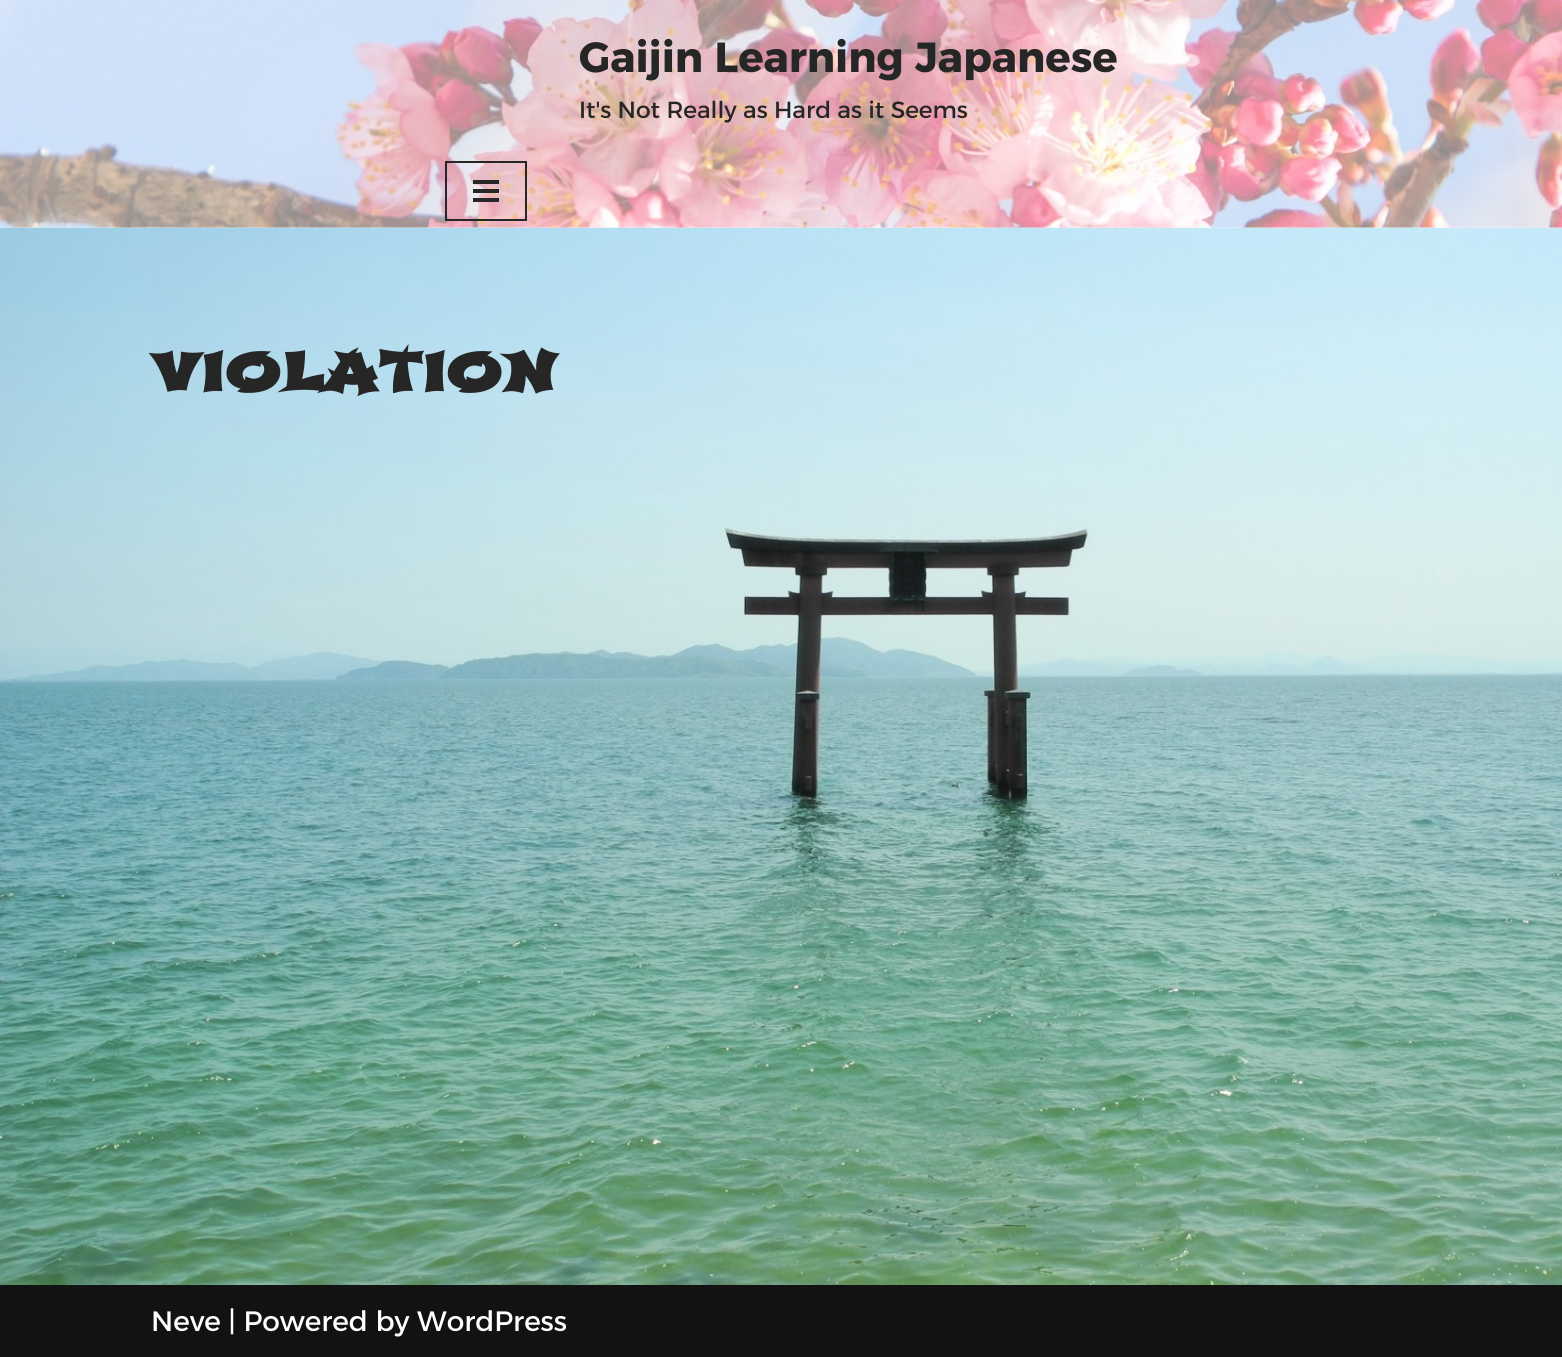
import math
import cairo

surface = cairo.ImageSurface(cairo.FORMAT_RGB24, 1562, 1357)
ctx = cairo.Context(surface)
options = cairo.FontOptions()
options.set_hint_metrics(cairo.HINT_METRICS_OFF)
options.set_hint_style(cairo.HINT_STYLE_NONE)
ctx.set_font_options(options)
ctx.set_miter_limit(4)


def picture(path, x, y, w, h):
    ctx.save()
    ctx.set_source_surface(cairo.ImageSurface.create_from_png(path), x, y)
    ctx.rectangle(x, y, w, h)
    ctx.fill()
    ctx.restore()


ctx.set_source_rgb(1, 1, 1)
ctx.paint()
picture("img1.png", 0, 227, 1562, 1058)
picture("img2.png", 0, 0, 1562, 228)
ctx.set_source_rgba(1, 1, 1, 0.55)
ctx.rectangle(0, 0, 1562, 228)
ctx.fill()
ctx.select_font_face("Alexandria", cairo.FONT_SLANT_NORMAL, cairo.FONT_WEIGHT_BOLD)
ctx.set_font_size(42)
ctx.set_source_rgb(0.153, 0.149, 0.149)
ctx.move_to(579, 72)
ctx.show_text("Gaijin Learning Japanese")
ctx.select_font_face("Alexandria")
ctx.set_font_size(23.3)
ctx.move_to(579, 118)
ctx.show_text("It's Not Really as Hard as it Seems")
ctx.rectangle(446, 162, 80, 58)
ctx.stroke()
ctx.rectangle(473, 180, 26, 4)
ctx.fill()
ctx.rectangle(473, 189, 26, 4)
ctx.fill()
ctx.rectangle(473, 198, 26, 4)
ctx.fill()
ctx.select_font_face("Shojumaru", cairo.FONT_SLANT_NORMAL, cairo.FONT_WEIGHT_BOLD)
ctx.set_font_size(66.5)
ctx.move_to(151, 391)
ctx.show_text("violation")
ctx.set_source_rgb(0.071, 0.071, 0.071)
ctx.rectangle(0, 1285, 1562, 72)
ctx.fill()
ctx.select_font_face("Alexandria")
ctx.set_font_size(28)
ctx.set_source_rgb(1, 1, 1)
ctx.move_to(151, 1331)
ctx.show_text("Neve | Powered by WordPress")
surface.write_to_png("page.png")
